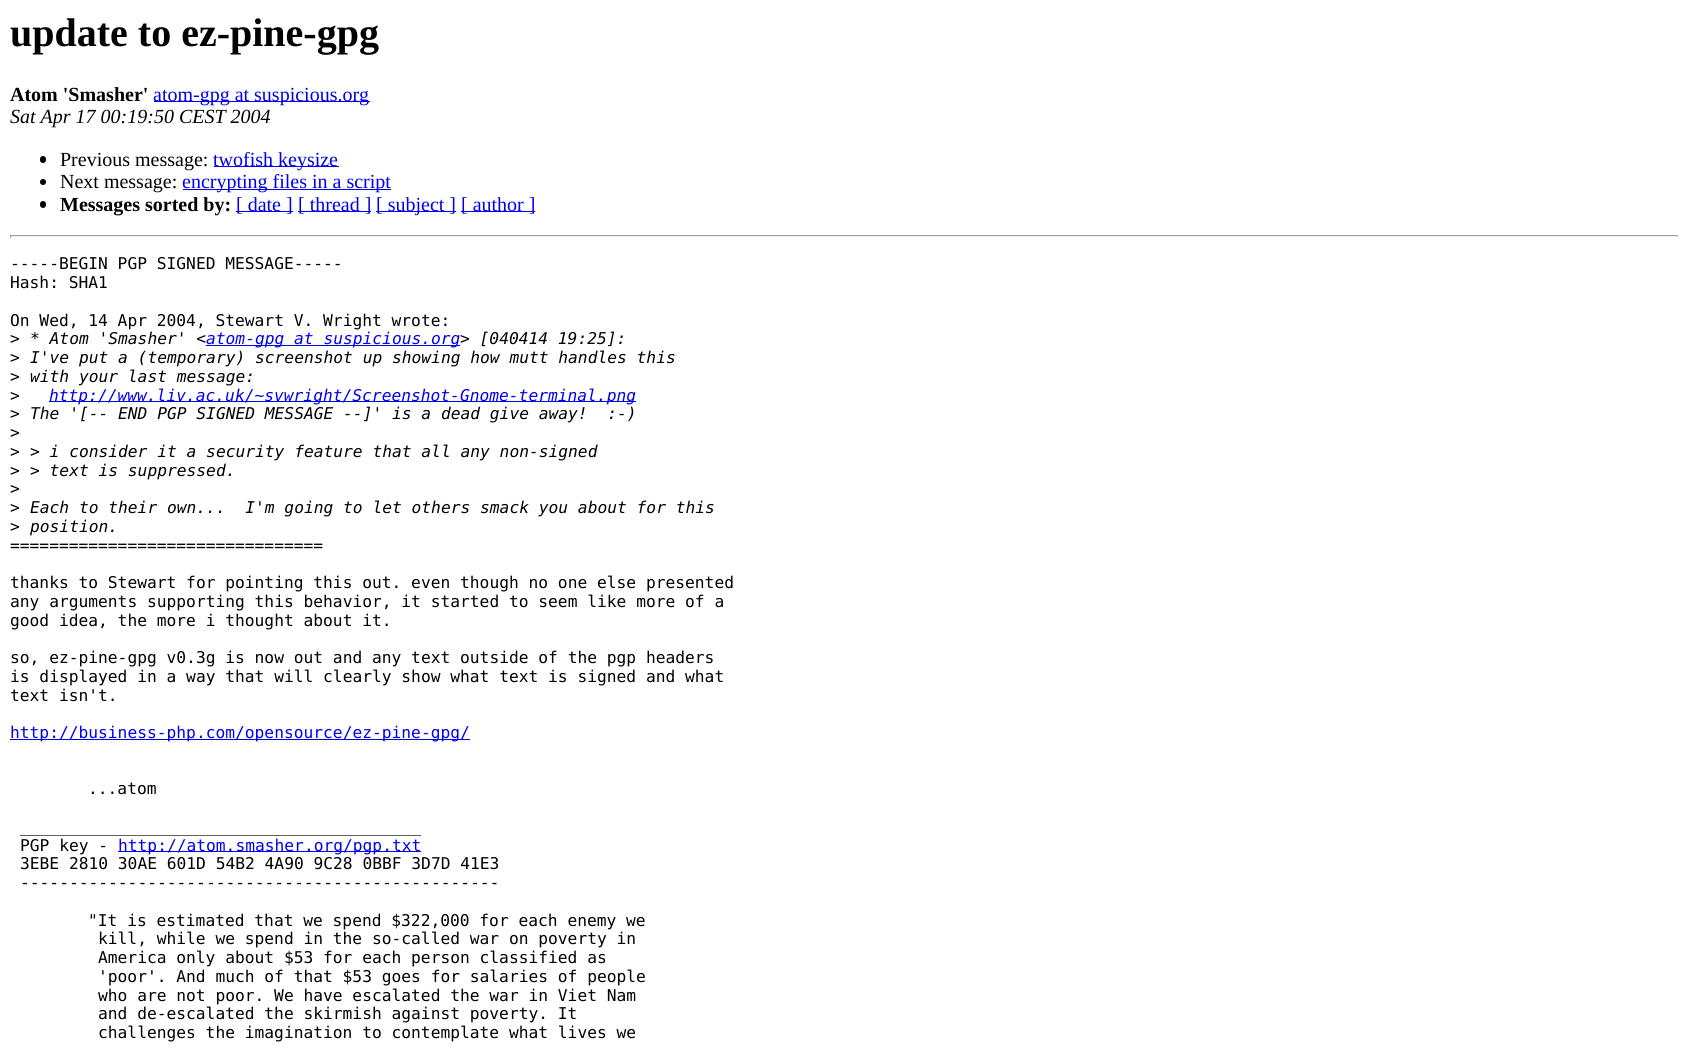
import math
import cairo

surface = cairo.ImageSurface(cairo.FORMAT_RGB24, 1688, 1048)
ctx = cairo.Context(surface)
options = cairo.FontOptions()
options.set_hint_metrics(cairo.HINT_METRICS_OFF)
options.set_hint_style(cairo.HINT_STYLE_NONE)
ctx.set_font_options(options)
ctx.set_miter_limit(4)


def round_rect(x, y, w, h, r):
    ctx.new_sub_path()
    for i, (u, v) in enumerate([(x + w - r, y + h - r), (x + r, y + h - r), (x + r, y + r), (x + w - r, y + r)]):
        ctx.arc(u, v, r, i * math.pi / 2, (i + 1) * math.pi / 2)
    ctx.close_path()


ctx.set_source_rgb(1, 1, 1)
ctx.paint()
ctx.select_font_face("Liberation Serif", cairo.FONT_SLANT_NORMAL, cairo.FONT_WEIGHT_BOLD)
ctx.set_font_size(40)
ctx.set_source_rgb(0, 0, 0)
ctx.move_to(10, 46)
ctx.show_text("update to ez-pine-gpg")
ctx.set_font_size(20)
ctx.move_to(10, 101)
ctx.show_text("Atom 'Smasher'")
ctx.set_source_rgb(0, 0, 0.933)
ctx.rectangle(154, 101, 216, 1)
ctx.fill()
ctx.select_font_face("Liberation Serif")
ctx.move_to(153, 101)
ctx.show_text("atom-gpg at suspicious.org")
ctx.select_font_face("Liberation Serif", cairo.FONT_SLANT_ITALIC)
ctx.set_source_rgb(0, 0, 0)
ctx.move_to(10, 123)
ctx.show_text("Sat Apr 17 00:19:50 CEST 2004")
round_rect(40, 156, 6, 7, 3)
ctx.fill()
ctx.select_font_face("Liberation Serif")
ctx.move_to(60, 166)
ctx.show_text("Previous message:")
ctx.set_source_rgb(0, 0, 0.933)
ctx.rectangle(214, 166, 125, 1)
ctx.fill()
ctx.move_to(213, 166)
ctx.show_text("twofish keysize")
ctx.set_source_rgb(0, 0, 0)
ctx.new_path()
ctx.arc(43, 182, 3, 0, 2 * math.pi)
ctx.fill()
ctx.move_to(60, 188)
ctx.show_text("Next message:")
ctx.set_source_rgb(0, 0, 0.933)
ctx.rectangle(183, 189, 208, 1)
ctx.fill()
ctx.move_to(182, 188)
ctx.show_text("encrypting files in a script")
ctx.set_source_rgb(0, 0, 0)
round_rect(40, 201, 6, 7, 3)
ctx.fill()
ctx.select_font_face("Liberation Serif", cairo.FONT_SLANT_NORMAL, cairo.FONT_WEIGHT_BOLD)
ctx.move_to(60, 211)
ctx.show_text("Messages sorted by:")
ctx.set_source_rgb(0, 0, 0.933)
ctx.rectangle(236, 211, 57, 1)
ctx.fill()
ctx.select_font_face("Liberation Serif")
ctx.move_to(236, 211)
ctx.show_text("[ date ]")
ctx.rectangle(298, 211, 73, 1)
ctx.fill()
ctx.move_to(298, 211)
ctx.show_text("[ thread ]")
ctx.rectangle(376, 211, 80, 1)
ctx.fill()
ctx.move_to(376, 211)
ctx.show_text("[ subject ]")
ctx.rectangle(461, 211, 74, 1)
ctx.fill()
ctx.move_to(461, 211)
ctx.show_text("[ author ]")
ctx.set_source_rgb(0.624, 0.624, 0.624)
ctx.rectangle(10, 235, 1669, 1)
ctx.fill()
ctx.set_source_rgb(0.933, 0.933, 0.933)
ctx.rectangle(1678, 235, 1, 3)
ctx.fill()
ctx.rectangle(10, 236, 1669, 1)
ctx.fill()
ctx.set_source_rgb(0.624, 0.624, 0.624)
ctx.rectangle(10, 235, 1, 3)
ctx.fill()
ctx.select_font_face("DejaVu Sans Mono")
ctx.set_font_size(16.25)
ctx.set_source_rgb(0, 0, 0)
ctx.move_to(10, 269)
ctx.show_text("-----BEGIN PGP SIGNED MESSAGE-----")
ctx.move_to(10, 288)
ctx.show_text("Hash: SHA1")
ctx.move_to(10, 326)
ctx.show_text("On Wed, 14 Apr 2004, Stewart V. Wright wrote:")
ctx.move_to(10, 344)
ctx.show_text(">")
ctx.select_font_face("DejaVu Sans Mono", cairo.FONT_SLANT_ITALIC)
ctx.move_to(30, 344)
ctx.show_text("* Atom 'Smasher' <")
ctx.set_source_rgb(0, 0, 0.933)
ctx.rectangle(206, 345, 254, 1)
ctx.fill()
ctx.move_to(206, 344)
ctx.show_text("atom-gpg at suspicious.org")
ctx.set_source_rgb(0, 0, 0)
ctx.move_to(460, 344)
ctx.show_text("> [040414 19:25]:")
ctx.select_font_face("DejaVu Sans Mono")
ctx.move_to(10, 363)
ctx.show_text(">")
ctx.select_font_face("DejaVu Sans Mono", cairo.FONT_SLANT_ITALIC)
ctx.move_to(30, 363)
ctx.show_text("I've put a (temporary) screenshot up showing how mutt handles this")
ctx.select_font_face("DejaVu Sans Mono")
ctx.move_to(10, 382)
ctx.show_text(">")
ctx.select_font_face("DejaVu Sans Mono", cairo.FONT_SLANT_ITALIC)
ctx.move_to(30, 382)
ctx.show_text("with your last message:")
ctx.select_font_face("DejaVu Sans Mono")
ctx.move_to(10, 401)
ctx.show_text(">")
ctx.set_source_rgb(0, 0, 0.933)
ctx.rectangle(49, 401, 587, 1)
ctx.fill()
ctx.select_font_face("DejaVu Sans Mono", cairo.FONT_SLANT_ITALIC)
ctx.move_to(49, 401)
ctx.show_text("http://www.liv.ac.uk/~svwright/Screenshot-Gnome-terminal.png")
ctx.select_font_face("DejaVu Sans Mono")
ctx.set_source_rgb(0, 0, 0)
ctx.move_to(10, 419)
ctx.show_text(">")
ctx.select_font_face("DejaVu Sans Mono", cairo.FONT_SLANT_ITALIC)
ctx.move_to(30, 419)
ctx.show_text("The '[-- END PGP SIGNED MESSAGE --]' is a dead give away!  :-)")
ctx.select_font_face("DejaVu Sans Mono")
ctx.move_to(10, 438)
ctx.show_text(">")
ctx.move_to(10, 457)
ctx.show_text(">")
ctx.select_font_face("DejaVu Sans Mono", cairo.FONT_SLANT_ITALIC)
ctx.move_to(30, 457)
ctx.show_text("> i consider it a security feature that all any non-signed")
ctx.select_font_face("DejaVu Sans Mono")
ctx.move_to(10, 476)
ctx.show_text(">")
ctx.select_font_face("DejaVu Sans Mono", cairo.FONT_SLANT_ITALIC)
ctx.move_to(30, 476)
ctx.show_text("> text is suppressed.")
ctx.select_font_face("DejaVu Sans Mono")
ctx.move_to(10, 494)
ctx.show_text(">")
ctx.move_to(10, 513)
ctx.show_text(">")
ctx.select_font_face("DejaVu Sans Mono", cairo.FONT_SLANT_ITALIC)
ctx.move_to(30, 513)
ctx.show_text("Each to their own...  I'm going to let others smack you about for this")
ctx.select_font_face("DejaVu Sans Mono")
ctx.move_to(10, 532)
ctx.show_text(">")
ctx.select_font_face("DejaVu Sans Mono", cairo.FONT_SLANT_ITALIC)
ctx.move_to(30, 532)
ctx.show_text("position.")
ctx.select_font_face("DejaVu Sans Mono")
ctx.move_to(10, 551)
ctx.show_text("================================")
ctx.move_to(10, 588)
ctx.show_text("thanks to Stewart for pointing this out. even though no one else presented")
ctx.move_to(10, 607)
ctx.show_text("any arguments supporting this behavior, it started to seem like more of a")
ctx.move_to(10, 626)
ctx.show_text("good idea, the more i thought about it.")
ctx.move_to(10, 663)
ctx.show_text("so, ez-pine-gpg v0.3g is now out and any text outside of the pgp headers")
ctx.move_to(10, 682)
ctx.show_text("is displayed in a way that will clearly show what text is signed and what")
ctx.move_to(10, 701)
ctx.show_text("text isn't.")
ctx.set_source_rgb(0, 0, 0.933)
ctx.rectangle(10, 739, 460, 1)
ctx.fill()
ctx.move_to(10, 738)
ctx.show_text("http://business-php.com/opensource/ez-pine-gpg/")
ctx.set_source_rgb(0, 0, 0)
ctx.move_to(88, 794)
ctx.show_text("...atom")
ctx.move_to(20, 832)
ctx.show_text("_________________________________________")
ctx.move_to(20, 851)
ctx.show_text("PGP key -")
ctx.set_source_rgb(0, 0, 0.933)
ctx.rectangle(118, 851, 303, 1)
ctx.fill()
ctx.move_to(118, 851)
ctx.show_text("http://atom.smasher.org/pgp.txt")
ctx.set_source_rgb(0, 0, 0)
ctx.move_to(20, 869)
ctx.show_text("3EBE 2810 30AE 601D 54B2 4A90 9C28 0BBF 3D7D 41E3")
ctx.move_to(20, 888)
ctx.show_text("-------------------------------------------------")
ctx.move_to(88, 926)
ctx.show_text("\"It is estimated that we spend $322,000 for each enemy we")
ctx.move_to(98, 944)
ctx.show_text("kill, while we spend in the so-called war on poverty in")
ctx.move_to(98, 963)
ctx.show_text("America only about $53 for each person classified as")
ctx.move_to(98, 982)
ctx.show_text("'poor'. And much of that $53 goes for salaries of people")
ctx.move_to(98, 1001)
ctx.show_text("who are not poor. We have escalated the war in Viet Nam")
ctx.move_to(98, 1019)
ctx.show_text("and de-escalated the skirmish against poverty. It")
ctx.move_to(98, 1038)
ctx.show_text("challenges the imagination to contemplate what lives we")
surface.write_to_png("page.png")
